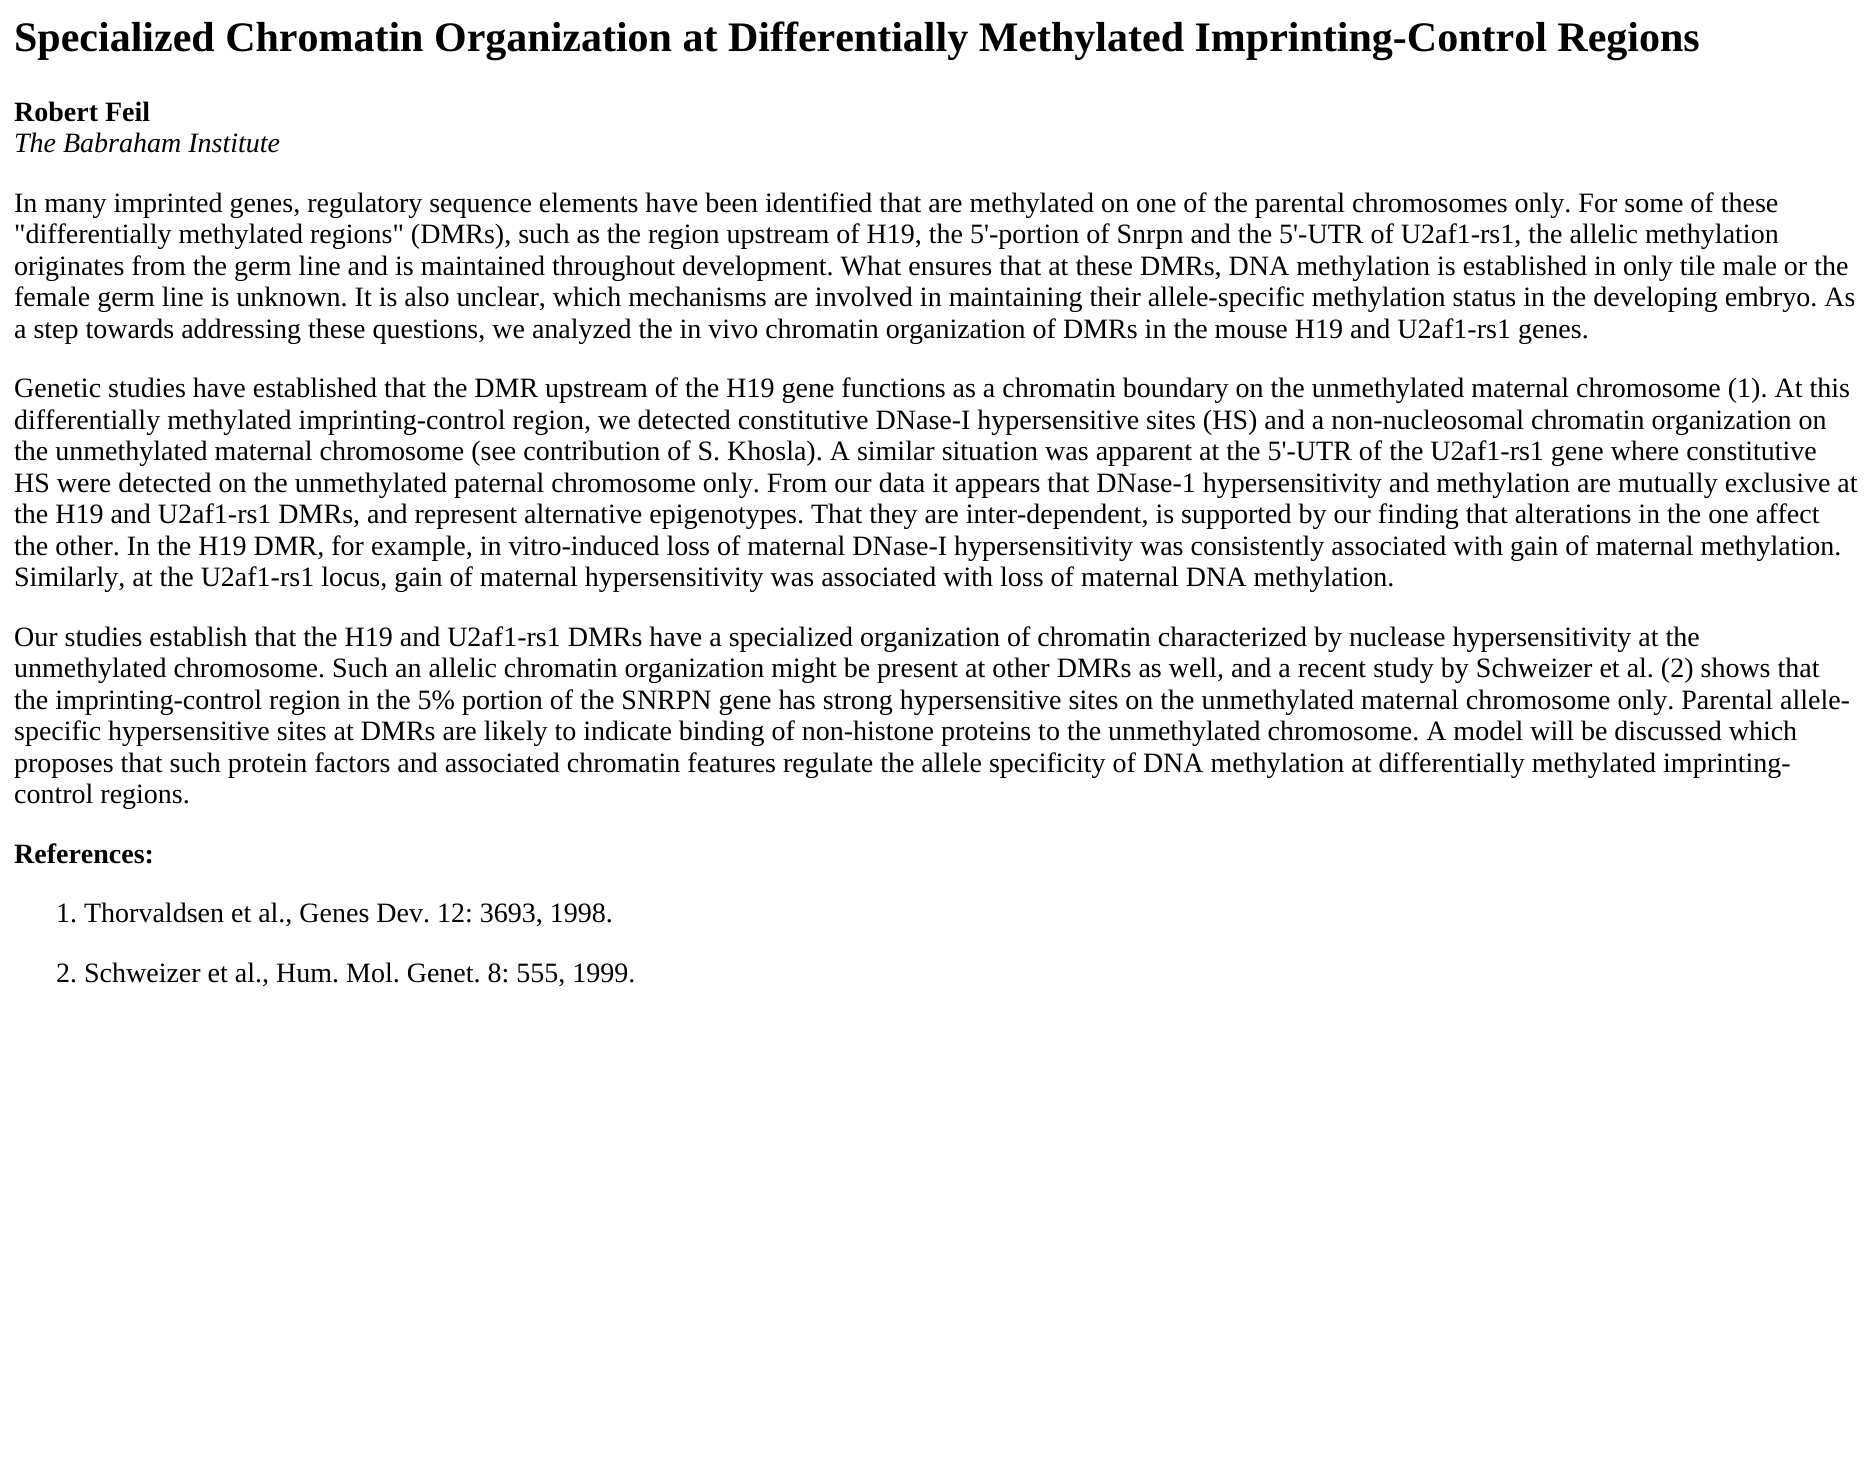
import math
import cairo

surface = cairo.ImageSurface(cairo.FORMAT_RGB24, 1871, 1476)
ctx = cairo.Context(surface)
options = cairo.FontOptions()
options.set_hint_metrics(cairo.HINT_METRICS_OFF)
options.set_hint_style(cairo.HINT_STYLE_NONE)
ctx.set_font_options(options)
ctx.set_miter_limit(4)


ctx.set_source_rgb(1, 1, 1)
ctx.paint()
ctx.select_font_face("Liberation Serif", cairo.FONT_SLANT_NORMAL, cairo.FONT_WEIGHT_BOLD)
ctx.set_font_size(42)
ctx.set_source_rgb(0, 0, 0)
ctx.move_to(14, 51)
ctx.show_text("Specialized Chromatin Organization at Differentially Methylated Imprinting-Control Regions")
ctx.set_font_size(28)
ctx.move_to(14, 121)
ctx.show_text("Robert Feil")
ctx.select_font_face("Liberation Serif", cairo.FONT_SLANT_ITALIC)
ctx.move_to(14, 152)
ctx.show_text("The Babraham Institute")
ctx.select_font_face("Liberation Serif")
ctx.move_to(14, 212)
ctx.show_text("In many imprinted genes, regulatory sequence elements have been identified that are methylated on one of the parental chromosomes only. For some of these")
ctx.move_to(14, 243)
ctx.show_text("\"differentially methylated regions\" (DMRs), such as the region upstream of H19, the 5'-portion of Snrpn and the 5'-UTR of U2af1-rs1, the allelic methylation")
ctx.move_to(14, 275)
ctx.show_text("originates from the germ line and is maintained throughout development. What ensures that at these DMRs, DNA methylation is established in only tile male or the")
ctx.move_to(14, 306)
ctx.show_text("female germ line is unknown. It is also unclear, which mechanisms are involved in maintaining their allele-specific methylation status in the developing embryo. As")
ctx.move_to(14, 338)
ctx.show_text("a step towards addressing these questions, we analyzed the in vivo chromatin organization of DMRs in the mouse H19 and U2af1-rs1 genes.")
ctx.move_to(14, 397)
ctx.show_text("Genetic studies have established that the DMR upstream of the H19 gene functions as a chromatin boundary on the unmethylated maternal chromosome (1). At this")
ctx.move_to(14, 429)
ctx.show_text("differentially methylated imprinting-control region, we detected constitutive DNase-I hypersensitive sites (HS) and a non-nucleosomal chromatin organization on")
ctx.move_to(14, 460)
ctx.show_text("the unmethylated maternal chromosome (see contribution of S. Khosla). A similar situation was apparent at the 5'-UTR of the U2af1-rs1 gene where constitutive")
ctx.move_to(14, 492)
ctx.show_text("HS were detected on the unmethylated paternal chromosome only. From our data it appears that DNase-1 hypersensitivity and methylation are mutually exclusive at")
ctx.move_to(14, 523)
ctx.show_text("the H19 and U2af1-rs1 DMRs, and represent alternative epigenotypes. That they are inter-dependent, is supported by our finding that alterations in the one affect")
ctx.move_to(14, 555)
ctx.show_text("the other. In the H19 DMR, for example, in vitro-induced loss of maternal DNase-I hypersensitivity was consistently associated with gain of maternal methylation.")
ctx.move_to(14, 586)
ctx.show_text("Similarly, at the U2af1-rs1 locus, gain of maternal hypersensitivity was associated with loss of maternal DNA methylation.")
ctx.move_to(14, 646)
ctx.show_text("Our studies establish that the H19 and U2af1-rs1 DMRs have a specialized organization of chromatin characterized by nuclease hypersensitivity at the")
ctx.move_to(14, 677)
ctx.show_text("unmethylated chromosome. Such an allelic chromatin organization might be present at other DMRs as well, and a recent study by Schweizer et al. (2) shows that")
ctx.move_to(14, 709)
ctx.show_text("the imprinting-control region in the 5% portion of the SNRPN gene has strong hypersensitive sites on the unmethylated maternal chromosome only. Parental allele-")
ctx.move_to(14, 740)
ctx.show_text("specific hypersensitive sites at DMRs are likely to indicate binding of non-histone proteins to the unmethylated chromosome. A model will be discussed which")
ctx.move_to(14, 772)
ctx.show_text("proposes that such protein factors and associated chromatin features regulate the allele specificity of DNA methylation at differentially methylated imprinting-")
ctx.move_to(14, 803)
ctx.show_text("control regions.")
ctx.select_font_face("Liberation Serif", cairo.FONT_SLANT_NORMAL, cairo.FONT_WEIGHT_BOLD)
ctx.move_to(14, 863)
ctx.show_text("References:")
ctx.select_font_face("Liberation Serif")
ctx.move_to(56, 922)
ctx.show_text("1. Thorvaldsen et al., Genes Dev. 12: 3693, 1998.")
ctx.move_to(56, 982)
ctx.show_text("2. Schweizer et al., Hum. Mol. Genet. 8: 555, 1999.")
surface.write_to_png("page.png")
